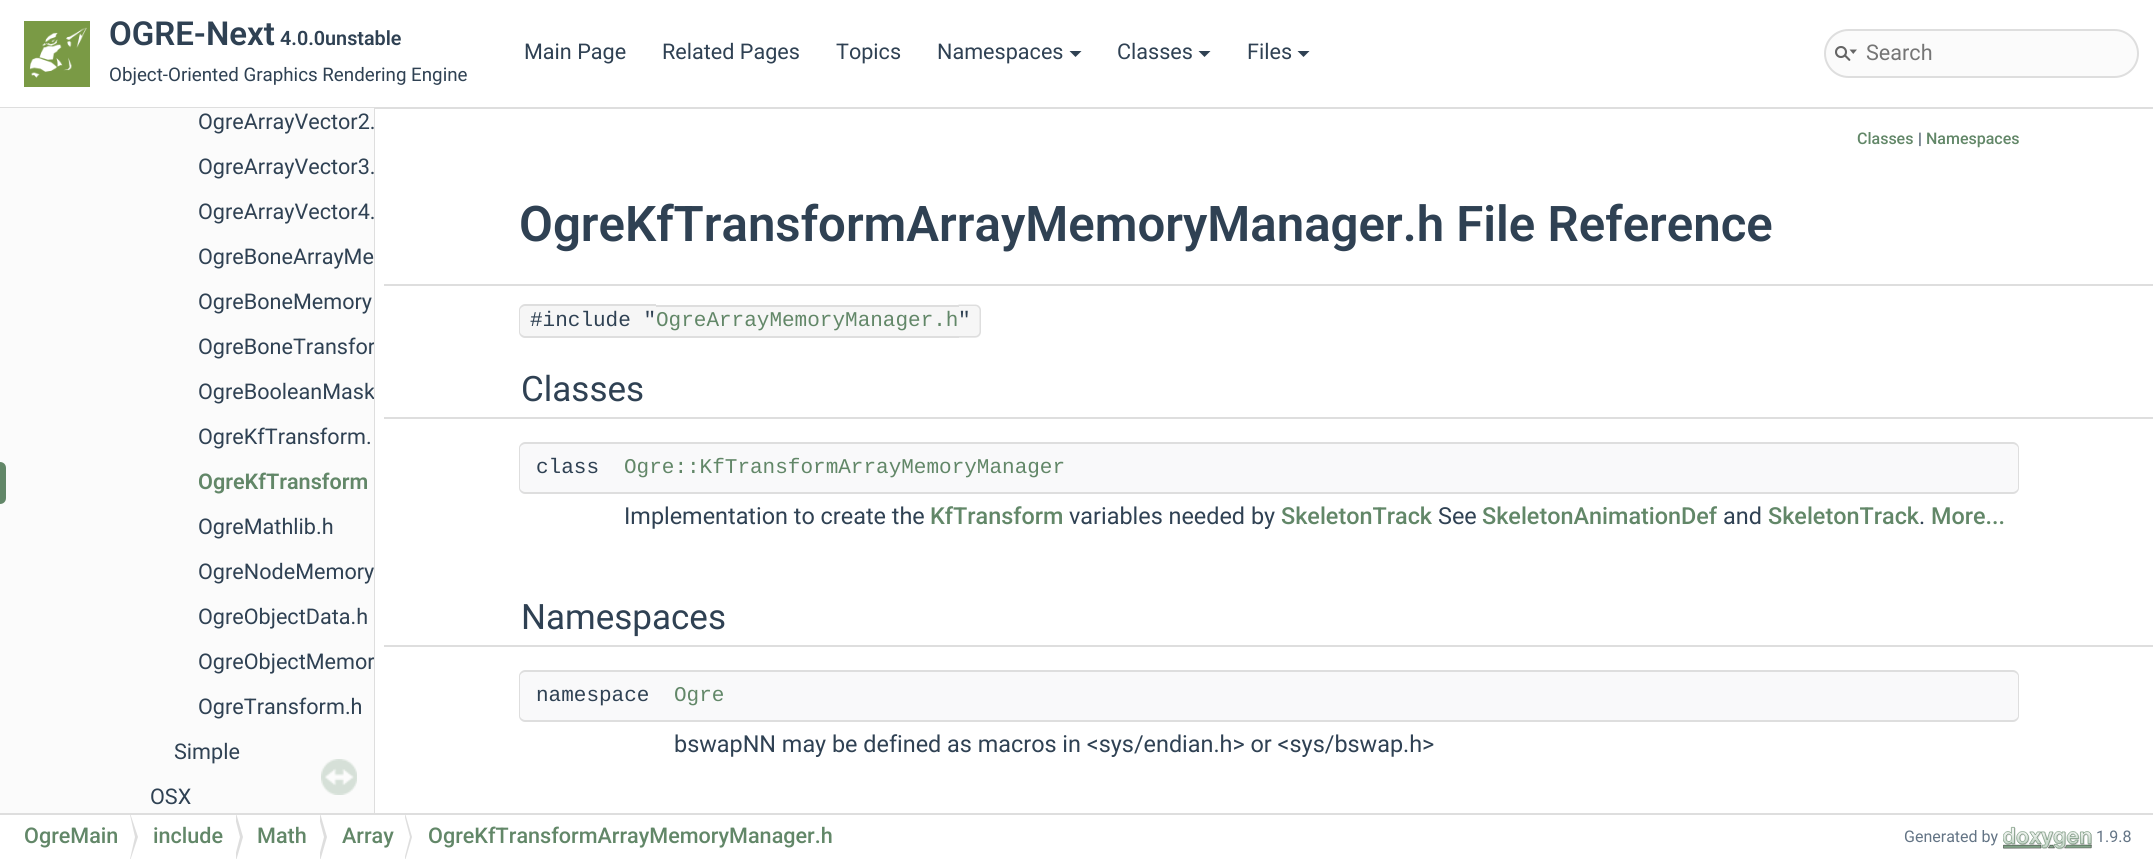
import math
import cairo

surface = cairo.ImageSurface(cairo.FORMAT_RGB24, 2153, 859)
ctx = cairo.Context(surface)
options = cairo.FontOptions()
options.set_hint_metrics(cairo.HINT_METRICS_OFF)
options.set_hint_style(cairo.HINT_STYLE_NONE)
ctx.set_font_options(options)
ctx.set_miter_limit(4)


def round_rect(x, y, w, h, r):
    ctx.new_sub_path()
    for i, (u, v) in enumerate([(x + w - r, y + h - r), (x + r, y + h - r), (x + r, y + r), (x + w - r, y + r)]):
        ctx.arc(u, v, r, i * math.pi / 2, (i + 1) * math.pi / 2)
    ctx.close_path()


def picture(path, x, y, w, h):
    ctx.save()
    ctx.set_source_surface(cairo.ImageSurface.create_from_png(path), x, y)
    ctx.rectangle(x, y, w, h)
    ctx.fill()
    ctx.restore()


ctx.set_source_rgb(1, 1, 1)
ctx.paint()
ctx.set_source_rgb(0.871, 0.871, 0.871)
ctx.rectangle(0, 107, 2153, 2)
ctx.fill()
picture("img1.png", 24, 21, 66, 66)
ctx.select_font_face("Roboto SemiBold")
ctx.set_font_size(33)
ctx.set_source_rgb(0.184, 0.255, 0.325)
ctx.move_to(109, 45)
ctx.show_text("OGRE-Next")
ctx.set_font_size(19.75)
ctx.move_to(280, 45)
ctx.show_text("4.0.0unstable")
ctx.select_font_face("Roboto")
ctx.set_font_size(18.75)
ctx.move_to(109, 81)
ctx.show_text("Object-Oriented Graphics Rendering Engine")
ctx.set_font_size(21.6)
ctx.move_to(524, 59)
ctx.show_text("Main Page")
ctx.move_to(662, 59)
ctx.show_text("Related Pages")
ctx.move_to(836, 59)
ctx.show_text("Topics")
ctx.move_to(937, 59)
ctx.show_text("Namespaces")
ctx.new_path()
ctx.move_to(1069.5, 51)
ctx.line_to(1081.5, 51)
ctx.line_to(1075.5, 57)
ctx.close_path()
ctx.fill()
ctx.move_to(1117, 59)
ctx.show_text("Classes")
ctx.new_path()
ctx.move_to(1198.5, 51)
ctx.line_to(1210.5, 51)
ctx.line_to(1204.5, 57)
ctx.close_path()
ctx.fill()
ctx.move_to(1247, 59)
ctx.show_text("Files")
ctx.new_path()
ctx.move_to(1297.5, 51)
ctx.line_to(1309.5, 51)
ctx.line_to(1303.5, 57)
ctx.close_path()
ctx.fill()
ctx.set_source_rgb(0.984, 0.984, 0.984)
round_rect(1825, 30, 313, 47, 23.5)
ctx.fill_preserve()
ctx.set_source_rgb(0.871, 0.871, 0.871)
ctx.stroke()
picture("img2.png", 1835, 46, 22, 15)
ctx.set_source_rgb(0.459, 0.459, 0.459)
ctx.move_to(1866, 60)
ctx.show_text("Search")
ctx.set_source_rgb(0.984, 0.984, 0.984)
ctx.rectangle(0, 108, 374, 705)
ctx.fill()
ctx.set_source_rgb(0.184, 0.255, 0.325)
ctx.move_to(198, 354)
ctx.show_text("OgreBoneTransfor")
ctx.move_to(198, 399)
ctx.show_text("OgreBooleanMask")
ctx.move_to(198, 669)
ctx.show_text("OgreObjectMemor")
ctx.set_source_rgb(0.871, 0.871, 0.871)
ctx.rectangle(374, 108, 1, 705)
ctx.fill()
ctx.set_source_rgb(0.184, 0.255, 0.325)
ctx.move_to(198, 129)
ctx.show_text("OgreArrayVector2.")
ctx.move_to(198, 174)
ctx.show_text("OgreArrayVector3.")
ctx.move_to(198, 219)
ctx.show_text("OgreArrayVector4.")
ctx.move_to(198, 264)
ctx.show_text("OgreBoneArrayMe")
ctx.move_to(198, 309)
ctx.show_text("OgreBoneMemory")
ctx.move_to(198, 444)
ctx.show_text("OgreKfTransform.")
ctx.set_source_rgb(0.384, 0.529, 0.408)
ctx.new_path()
ctx.move_to(0, 462)
ctx.curve_to(3.5, 462, 6, 464.5, 6, 468)
ctx.line_to(6, 498)
ctx.curve_to(6, 501.5, 3.5, 504, 0, 504)
ctx.close_path()
ctx.fill()
ctx.select_font_face("Roboto SemiBold")
ctx.move_to(198, 489)
ctx.show_text("OgreKfTransform")
ctx.select_font_face("Roboto")
ctx.set_source_rgb(0.184, 0.255, 0.325)
ctx.move_to(198, 534)
ctx.show_text("OgreMathlib.h")
ctx.move_to(198, 579)
ctx.show_text("OgreNodeMemory")
ctx.move_to(198, 624)
ctx.show_text("OgreObjectData.h")
ctx.move_to(198, 714)
ctx.show_text("OgreTransform.h")
ctx.move_to(174, 759)
ctx.show_text("Simple")
ctx.move_to(150, 804)
ctx.show_text("OSX")
picture("img3.png", 321, 759, 36, 36)
ctx.set_source_rgb(0.871, 0.871, 0.871)
ctx.rectangle(384, 284, 1769, 2)
ctx.fill()
ctx.select_font_face("Roboto Medium")
ctx.set_font_size(16)
ctx.set_source_rgb(0.384, 0.529, 0.408)
ctx.move_to(1857, 144)
ctx.show_text("Classes")
ctx.select_font_face("Roboto")
ctx.set_source_rgb(0.184, 0.255, 0.325)
ctx.move_to(1918, 144)
ctx.show_text("|")
ctx.select_font_face("Roboto Medium")
ctx.set_source_rgb(0.384, 0.529, 0.408)
ctx.move_to(1926, 144)
ctx.show_text("Namespaces")
ctx.select_font_face("Roboto SemiBold")
ctx.set_font_size(49.15)
ctx.set_source_rgb(0.184, 0.255, 0.325)
ctx.move_to(519, 241)
ctx.show_text("OgreKfTransformArrayMemoryManager.h File Reference")
ctx.set_source_rgb(0.961, 0.961, 0.961)
ctx.new_path()
ctx.move_to(525, 305)
ctx.line_to(656, 305)
ctx.line_to(656, 338)
ctx.line_to(525, 338)
ctx.curve_to(521.5, 338, 519, 335.5, 519, 332)
ctx.line_to(519, 311)
ctx.curve_to(519, 307.5, 521.5, 305, 525, 305)
ctx.close_path()
ctx.fill()
ctx.set_source_rgb(0.871, 0.871, 0.871)
ctx.set_fill_rule(cairo.FILL_RULE_EVEN_ODD)
ctx.new_path()
ctx.move_to(525, 304)
ctx.line_to(656, 304)
ctx.line_to(656, 338)
ctx.line_to(525, 338)
ctx.curve_to(522, 338, 519, 335, 519, 332)
ctx.line_to(519, 310)
ctx.curve_to(519, 307, 522, 304, 525, 304)
ctx.close_path()
ctx.move_to(525, 306)
ctx.line_to(656, 306)
ctx.line_to(656, 336)
ctx.line_to(525, 336)
ctx.curve_to(523, 336, 520, 334, 520, 332)
ctx.line_to(520, 310)
ctx.curve_to(520, 308, 523, 306, 525, 306)
ctx.close_path()
ctx.fill()
ctx.select_font_face("Liberation Mono")
ctx.set_font_size(21)
ctx.set_source_rgb(0.184, 0.255, 0.325)
ctx.move_to(530, 326)
ctx.show_text("#include \"")
ctx.set_source_rgb(0.961, 0.961, 0.961)
ctx.rectangle(656, 307, 303, 29)
ctx.fill()
ctx.set_source_rgb(0.384, 0.529, 0.408)
ctx.move_to(656, 326)
ctx.show_text("OgreArrayMemoryManager.h")
ctx.set_source_rgb(0.871, 0.871, 0.871)
ctx.rectangle(656, 336, 303, 2)
ctx.fill()
ctx.set_source_rgb(0.961, 0.961, 0.961)
ctx.new_path()
ctx.move_to(959, 305)
ctx.line_to(975, 305)
ctx.curve_to(978.5, 305, 981, 307.5, 981, 311)
ctx.line_to(981, 332)
ctx.curve_to(981, 335.5, 978.5, 338, 975, 338)
ctx.line_to(959, 338)
ctx.close_path()
ctx.fill()
ctx.set_source_rgb(0.871, 0.871, 0.871)
ctx.rectangle(656, 305, 303, 2)
ctx.fill()
ctx.new_path()
ctx.move_to(958.5, 304.5)
ctx.line_to(975, 304.5)
ctx.curve_to(978.5, 304.5, 981, 307, 981, 310.5)
ctx.line_to(981, 331.5)
ctx.curve_to(981, 335, 978.5, 337.5, 975, 337.5)
ctx.line_to(958.5, 337.5)
ctx.close_path()
ctx.move_to(958.5, 306)
ctx.line_to(975, 306)
ctx.curve_to(977.5, 306, 979.5, 308, 979.5, 310.5)
ctx.line_to(979.5, 331.5)
ctx.curve_to(979.5, 334, 977.5, 336, 975, 336)
ctx.line_to(958.5, 336)
ctx.close_path()
ctx.fill()
ctx.set_source_rgb(0.184, 0.255, 0.325)
ctx.move_to(958, 326)
ctx.show_text("\"")
ctx.save()
ctx.set_fill_rule(cairo.FILL_RULE_WINDING)
ctx.rectangle(384, 108, 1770, 705)
ctx.clip()
ctx.set_source_rgb(0.871, 0.871, 0.871)
ctx.new_path()
ctx.move_to(371, 359)
ctx.line_to(371, 419)
ctx.line_to(1868, 419)
ctx.line_to(1868, 417)
ctx.line_to(520, 417)
ctx.line_to(520, 359)
ctx.close_path()
ctx.fill()
ctx.restore()
ctx.set_source_rgb(0.871, 0.871, 0.871)
ctx.set_fill_rule(cairo.FILL_RULE_WINDING)
ctx.new_path()
ctx.move_to(671, 417)
ctx.line_to(671, 419)
ctx.line_to(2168, 419)
ctx.line_to(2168, 359)
ctx.line_to(2018, 359)
ctx.line_to(2018, 417)
ctx.close_path()
ctx.fill()
ctx.set_source_rgb(1, 1, 1)
ctx.rectangle(384, 359, 136, 58)
ctx.fill()
ctx.rectangle(2018, 359, 135, 58)
ctx.fill()
ctx.select_font_face("Roboto")
ctx.set_font_size(35)
ctx.set_source_rgb(0.184, 0.255, 0.325)
ctx.move_to(521, 401)
ctx.show_text("Classes")
ctx.set_source_rgb(0.973, 0.976, 0.98)
ctx.new_path()
ctx.move_to(525, 443)
ctx.line_to(624, 443)
ctx.line_to(624, 494)
ctx.line_to(525, 494)
ctx.curve_to(521.5, 494, 519, 491.5, 519, 488)
ctx.line_to(519, 449)
ctx.curve_to(519, 445.5, 521.5, 443, 525, 443)
ctx.close_path()
ctx.fill()
ctx.set_source_rgb(0.871, 0.871, 0.871)
ctx.set_fill_rule(cairo.FILL_RULE_EVEN_ODD)
ctx.new_path()
ctx.move_to(525, 442)
ctx.line_to(624, 442)
ctx.line_to(624, 494)
ctx.line_to(525, 494)
ctx.curve_to(522, 494, 519, 491, 519, 488)
ctx.line_to(519, 448)
ctx.curve_to(519, 445, 522, 442, 525, 442)
ctx.close_path()
ctx.move_to(525, 444)
ctx.line_to(624, 444)
ctx.line_to(624, 492)
ctx.line_to(525, 492)
ctx.curve_to(523, 492, 520, 490, 520, 488)
ctx.line_to(520, 448)
ctx.curve_to(520, 446, 523, 444, 525, 444)
ctx.close_path()
ctx.fill()
ctx.select_font_face("Liberation Mono")
ctx.set_font_size(21)
ctx.set_source_rgb(0.184, 0.255, 0.325)
ctx.move_to(536, 473)
ctx.show_text("class")
ctx.set_source_rgb(0.973, 0.976, 0.98)
ctx.new_path()
ctx.move_to(624, 443)
ctx.line_to(2013, 443)
ctx.curve_to(2016.5, 443, 2019, 445.5, 2019, 449)
ctx.line_to(2019, 488)
ctx.curve_to(2019, 491.5, 2016.5, 494, 2013, 494)
ctx.line_to(624, 494)
ctx.close_path()
ctx.fill()
ctx.set_source_rgb(0.871, 0.871, 0.871)
ctx.new_path()
ctx.move_to(624, 442)
ctx.line_to(2013, 442)
ctx.curve_to(2016, 442, 2019, 445, 2019, 448)
ctx.line_to(2019, 488)
ctx.curve_to(2019, 491, 2016, 494, 2013, 494)
ctx.line_to(624, 494)
ctx.close_path()
ctx.move_to(624, 444)
ctx.line_to(2013, 444)
ctx.curve_to(2015, 444, 2018, 446, 2018, 448)
ctx.line_to(2018, 488)
ctx.curve_to(2018, 490, 2015, 492, 2013, 492)
ctx.line_to(624, 492)
ctx.close_path()
ctx.fill()
ctx.set_source_rgb(0.384, 0.529, 0.408)
ctx.move_to(624, 473)
ctx.show_text("Ogre::KfTransformArrayMemoryManager")
ctx.select_font_face("Roboto")
ctx.set_font_size(23.4)
ctx.set_source_rgb(0.184, 0.255, 0.325)
ctx.move_to(624, 524)
ctx.show_text("Implementation to create the")
ctx.select_font_face("Roboto Medium")
ctx.set_source_rgb(0.384, 0.529, 0.408)
ctx.move_to(930, 524)
ctx.show_text("KfTransform")
ctx.select_font_face("Roboto")
ctx.set_source_rgb(0.184, 0.255, 0.325)
ctx.move_to(1069, 524)
ctx.show_text("variables needed by")
ctx.select_font_face("Roboto Medium")
ctx.set_source_rgb(0.384, 0.529, 0.408)
ctx.move_to(1281, 524)
ctx.show_text("SkeletonTrack")
ctx.select_font_face("Roboto")
ctx.set_source_rgb(0.184, 0.255, 0.325)
ctx.move_to(1438, 524)
ctx.show_text("See")
ctx.select_font_face("Roboto Medium")
ctx.set_source_rgb(0.384, 0.529, 0.408)
ctx.move_to(1482, 524)
ctx.show_text("SkeletonAnimationDef")
ctx.select_font_face("Roboto")
ctx.set_source_rgb(0.184, 0.255, 0.325)
ctx.move_to(1723, 524)
ctx.show_text("and")
ctx.select_font_face("Roboto Medium")
ctx.set_source_rgb(0.384, 0.529, 0.408)
ctx.move_to(1768, 524)
ctx.show_text("SkeletonTrack")
ctx.select_font_face("Roboto")
ctx.set_source_rgb(0.184, 0.255, 0.325)
ctx.move_to(1919, 524)
ctx.show_text(".")
ctx.select_font_face("Roboto Medium")
ctx.set_source_rgb(0.384, 0.529, 0.408)
ctx.move_to(1931, 524)
ctx.show_text("More...")
ctx.save()
ctx.set_fill_rule(cairo.FILL_RULE_WINDING)
ctx.rectangle(384, 108, 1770, 705)
ctx.clip()
ctx.set_source_rgb(0.871, 0.871, 0.871)
ctx.new_path()
ctx.move_to(371, 587)
ctx.line_to(371, 647)
ctx.line_to(1868, 647)
ctx.line_to(1868, 645)
ctx.line_to(520, 645)
ctx.line_to(520, 587)
ctx.close_path()
ctx.fill()
ctx.restore()
ctx.set_source_rgb(0.871, 0.871, 0.871)
ctx.set_fill_rule(cairo.FILL_RULE_WINDING)
ctx.new_path()
ctx.move_to(671, 645)
ctx.line_to(671, 647)
ctx.line_to(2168, 647)
ctx.line_to(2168, 587)
ctx.line_to(2018, 587)
ctx.line_to(2018, 645)
ctx.close_path()
ctx.fill()
ctx.set_source_rgb(1, 1, 1)
ctx.rectangle(384, 587, 136, 58)
ctx.fill()
ctx.rectangle(2018, 587, 135, 58)
ctx.fill()
ctx.select_font_face("Roboto")
ctx.set_font_size(35)
ctx.set_source_rgb(0.184, 0.255, 0.325)
ctx.move_to(521, 629)
ctx.show_text("Namespaces")
ctx.set_source_rgb(0.973, 0.976, 0.98)
ctx.new_path()
ctx.move_to(525, 671)
ctx.line_to(674, 671)
ctx.line_to(674, 722)
ctx.line_to(525, 722)
ctx.curve_to(521.5, 722, 519, 719.5, 519, 716)
ctx.line_to(519, 677)
ctx.curve_to(519, 673.5, 521.5, 671, 525, 671)
ctx.close_path()
ctx.fill()
ctx.set_source_rgb(0.871, 0.871, 0.871)
ctx.set_fill_rule(cairo.FILL_RULE_EVEN_ODD)
ctx.new_path()
ctx.move_to(525, 670)
ctx.line_to(674, 670)
ctx.line_to(674, 722)
ctx.line_to(525, 722)
ctx.curve_to(522, 722, 519, 719, 519, 716)
ctx.line_to(519, 676)
ctx.curve_to(519, 673, 522, 670, 525, 670)
ctx.close_path()
ctx.move_to(525, 672)
ctx.line_to(674, 672)
ctx.line_to(674, 720)
ctx.line_to(525, 720)
ctx.curve_to(523, 720, 520, 718, 520, 716)
ctx.line_to(520, 676)
ctx.curve_to(520, 674, 523, 672, 525, 672)
ctx.close_path()
ctx.fill()
ctx.select_font_face("Liberation Mono")
ctx.set_font_size(21)
ctx.set_source_rgb(0.184, 0.255, 0.325)
ctx.move_to(536, 701)
ctx.show_text("namespace")
ctx.set_source_rgb(0.973, 0.976, 0.98)
ctx.new_path()
ctx.move_to(674, 671)
ctx.line_to(2013, 671)
ctx.curve_to(2016.5, 671, 2019, 673.5, 2019, 677)
ctx.line_to(2019, 716)
ctx.curve_to(2019, 719.5, 2016.5, 722, 2013, 722)
ctx.line_to(674, 722)
ctx.close_path()
ctx.fill()
ctx.set_source_rgb(0.871, 0.871, 0.871)
ctx.new_path()
ctx.move_to(674, 670)
ctx.line_to(2013, 670)
ctx.curve_to(2016, 670, 2019, 673, 2019, 676)
ctx.line_to(2019, 716)
ctx.curve_to(2019, 719, 2016, 722, 2013, 722)
ctx.line_to(674, 722)
ctx.close_path()
ctx.move_to(674, 672)
ctx.line_to(2013, 672)
ctx.curve_to(2015, 672, 2018, 674, 2018, 676)
ctx.line_to(2018, 716)
ctx.curve_to(2018, 718, 2015, 720, 2013, 720)
ctx.line_to(674, 720)
ctx.close_path()
ctx.fill()
ctx.set_source_rgb(0.384, 0.529, 0.408)
ctx.move_to(674, 701)
ctx.show_text("Ogre")
ctx.select_font_face("Roboto")
ctx.set_font_size(23.4)
ctx.set_source_rgb(0.184, 0.255, 0.325)
ctx.move_to(674, 752)
ctx.show_text("bswapNN may be defined as macros in <sys/endian.h> or <sys/bswap.h>")
ctx.set_source_rgb(0.871, 0.871, 0.871)
ctx.rectangle(0, 813, 2153, 2)
ctx.fill()
ctx.select_font_face("Roboto Medium")
ctx.set_font_size(21.6)
ctx.set_source_rgb(0.384, 0.529, 0.408)
ctx.move_to(24, 843)
ctx.show_text("OgreMain")
ctx.set_source_rgb(0.871, 0.871, 0.871)
ctx.set_fill_rule(cairo.FILL_RULE_WINDING)
ctx.new_path()
ctx.move_to(130, 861)
ctx.line_to(130, 813)
ctx.line_to(138, 837)
ctx.close_path()
ctx.fill()
ctx.save()
ctx.rectangle(0, 815, 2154, 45)
ctx.clip()
ctx.set_source_rgb(1, 1, 1)
ctx.new_path()
ctx.move_to(128, 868)
ctx.line_to(128, 806)
ctx.line_to(135, 837)
ctx.close_path()
ctx.fill()
ctx.restore()
ctx.set_source_rgb(0.384, 0.529, 0.408)
ctx.move_to(153, 843)
ctx.show_text("include")
ctx.set_source_rgb(0.871, 0.871, 0.871)
ctx.new_path()
ctx.move_to(236, 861)
ctx.line_to(236, 813)
ctx.line_to(243, 837)
ctx.close_path()
ctx.fill()
ctx.save()
ctx.rectangle(0, 815, 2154, 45)
ctx.clip()
ctx.set_source_rgb(1, 1, 1)
ctx.new_path()
ctx.move_to(232, 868)
ctx.line_to(232, 806)
ctx.line_to(240, 837)
ctx.close_path()
ctx.fill()
ctx.restore()
ctx.set_source_rgb(0.384, 0.529, 0.408)
ctx.move_to(257, 843)
ctx.show_text("Math")
ctx.set_source_rgb(0.871, 0.871, 0.871)
ctx.new_path()
ctx.move_to(320, 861)
ctx.line_to(320, 813)
ctx.line_to(327, 837)
ctx.close_path()
ctx.fill()
ctx.save()
ctx.rectangle(0, 815, 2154, 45)
ctx.clip()
ctx.set_source_rgb(1, 1, 1)
ctx.new_path()
ctx.move_to(316, 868)
ctx.line_to(316, 806)
ctx.line_to(324, 837)
ctx.close_path()
ctx.fill()
ctx.restore()
ctx.set_source_rgb(0.384, 0.529, 0.408)
ctx.move_to(342, 843)
ctx.show_text("Array")
ctx.set_source_rgb(0.871, 0.871, 0.871)
ctx.new_path()
ctx.move_to(405, 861)
ctx.line_to(405, 813)
ctx.line_to(412, 837)
ctx.close_path()
ctx.fill()
ctx.save()
ctx.rectangle(0, 815, 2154, 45)
ctx.clip()
ctx.set_source_rgb(1, 1, 1)
ctx.new_path()
ctx.move_to(402, 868)
ctx.line_to(402, 806)
ctx.line_to(410, 837)
ctx.close_path()
ctx.fill()
ctx.restore()
ctx.set_source_rgb(0.384, 0.529, 0.408)
ctx.move_to(428, 843)
ctx.show_text("OgreKfTransformArrayMemoryManager.h")
ctx.select_font_face("Roboto")
ctx.set_font_size(16)
ctx.set_source_rgb(0.388, 0.455, 0.522)
ctx.move_to(1904, 842)
ctx.show_text("Generated by")
picture("img4.png", 2003, 826, 89, 24)
ctx.move_to(2096, 842)
ctx.show_text("1.9.8")
surface.write_to_png("page.png")
